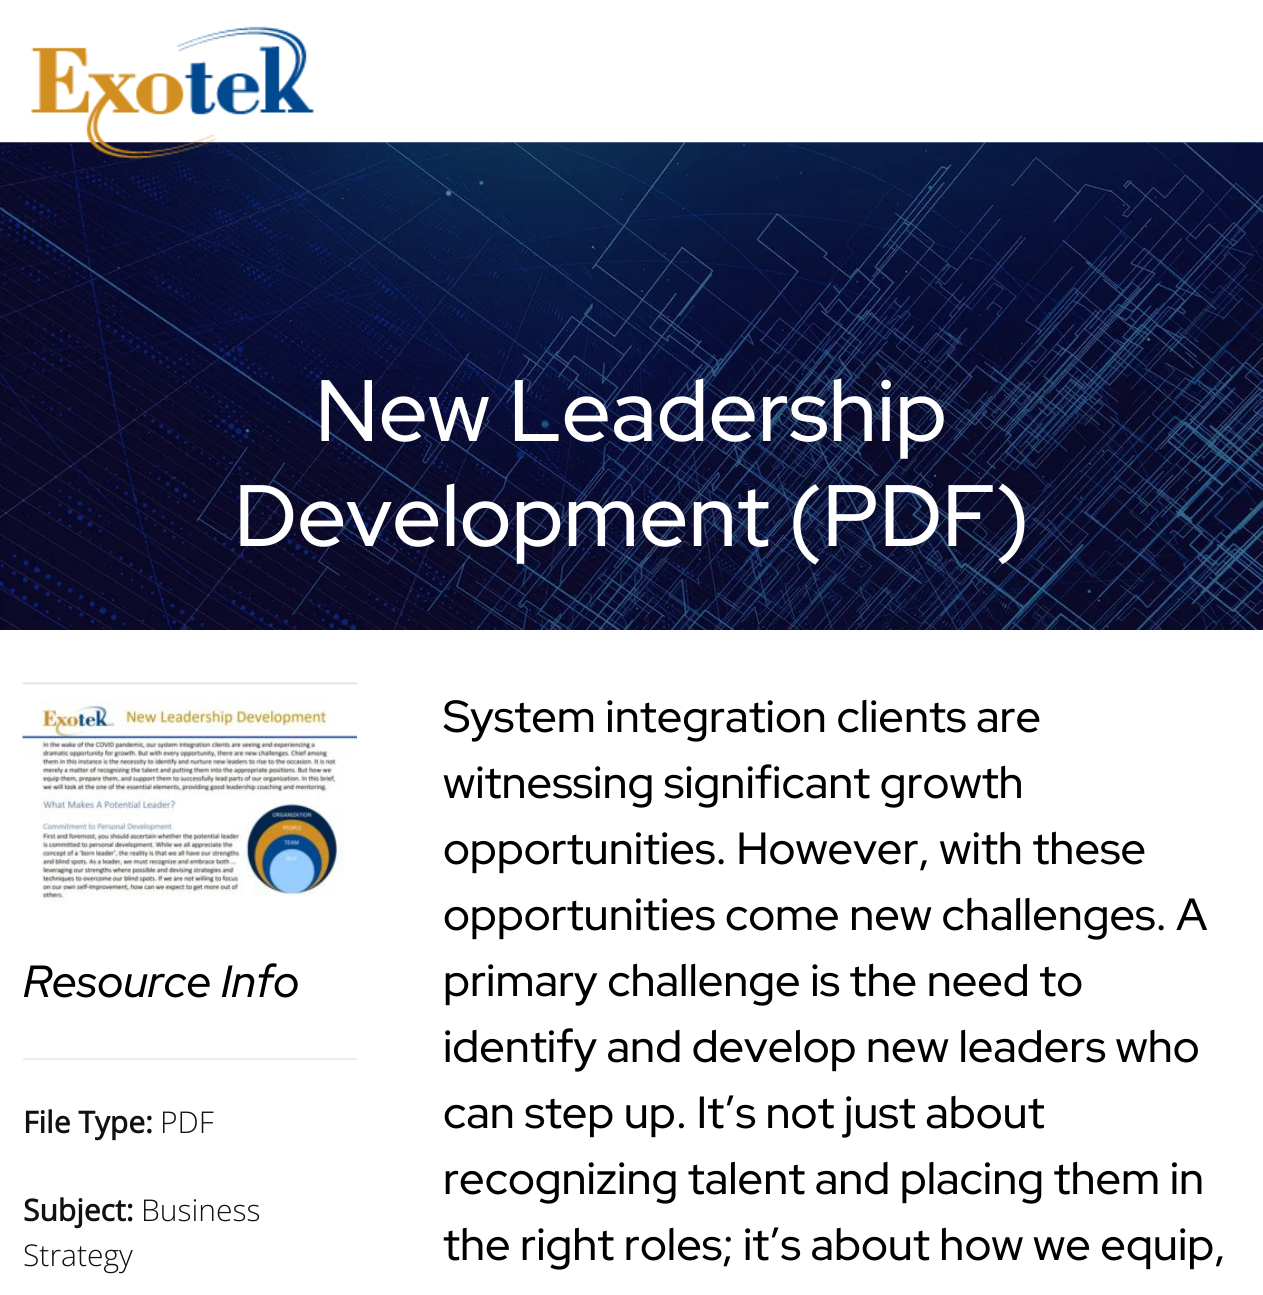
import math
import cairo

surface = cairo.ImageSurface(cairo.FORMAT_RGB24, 1263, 1295)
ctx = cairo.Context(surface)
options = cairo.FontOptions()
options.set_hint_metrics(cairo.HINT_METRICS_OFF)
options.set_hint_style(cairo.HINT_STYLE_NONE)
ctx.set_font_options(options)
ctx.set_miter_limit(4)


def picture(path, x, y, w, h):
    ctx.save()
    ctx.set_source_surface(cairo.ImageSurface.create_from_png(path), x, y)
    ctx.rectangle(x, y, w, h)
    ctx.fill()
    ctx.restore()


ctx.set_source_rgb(1, 1, 1)
ctx.paint()
picture("img2.png", 0, 142, 1263, 1)
picture("img3.png", 0, 142, 1263, 488)
picture("img1.png", 31, 26, 283, 134)
ctx.select_font_face("Red Hat Display Medium")
ctx.set_font_size(87)
ctx.set_source_rgb(1, 1, 1)
ctx.move_to(315, 441)
ctx.show_text("New Leadership")
ctx.move_to(234, 546)
ctx.show_text("Development (PDF)")
picture("img4.png", 22, 682, 335, 222)
ctx.select_font_face("Red Hat Display Medium", cairo.FONT_SLANT_ITALIC)
ctx.set_font_size(45)
ctx.set_source_rgb(0, 0, 0)
ctx.move_to(23, 997)
ctx.show_text("Resource Info")
ctx.set_source_rgb(0.922, 0.922, 0.922)
ctx.rectangle(23, 1058, 334, 2)
ctx.fill()
ctx.select_font_face("Open Sans", cairo.FONT_SLANT_NORMAL, cairo.FONT_WEIGHT_BOLD)
ctx.set_font_size(30)
ctx.set_source_rgb(0.067, 0.067, 0.067)
ctx.move_to(23, 1133)
ctx.show_text("File Type:")
ctx.select_font_face("Open Sans Light")
ctx.move_to(160, 1133)
ctx.show_text("PDF")
ctx.select_font_face("Open Sans", cairo.FONT_SLANT_NORMAL, cairo.FONT_WEIGHT_BOLD)
ctx.move_to(23, 1221)
ctx.show_text("Subject:")
ctx.select_font_face("Open Sans Light")
ctx.move_to(141, 1221)
ctx.show_text("Business")
ctx.move_to(23, 1266)
ctx.show_text("Strategy")
ctx.select_font_face("Red Hat Display Medium")
ctx.set_font_size(45)
ctx.set_source_rgb(0, 0, 0)
ctx.move_to(443, 732)
ctx.show_text("System integration clients are")
ctx.move_to(443, 798)
ctx.show_text("witnessing significant growth")
ctx.move_to(443, 864)
ctx.show_text("opportunities. However, with these")
ctx.move_to(443, 930)
ctx.show_text("opportunities come new challenges. A")
ctx.move_to(443, 996)
ctx.show_text("primary challenge is the need to")
ctx.move_to(443, 1062)
ctx.show_text("identify and develop new leaders who")
ctx.move_to(443, 1128)
ctx.show_text("can step up. It’s not just about")
ctx.move_to(443, 1194)
ctx.show_text("recognizing talent and placing them in")
ctx.move_to(443, 1260)
ctx.show_text("the right roles; it’s about how we equip,")
surface.write_to_png("page.png")
